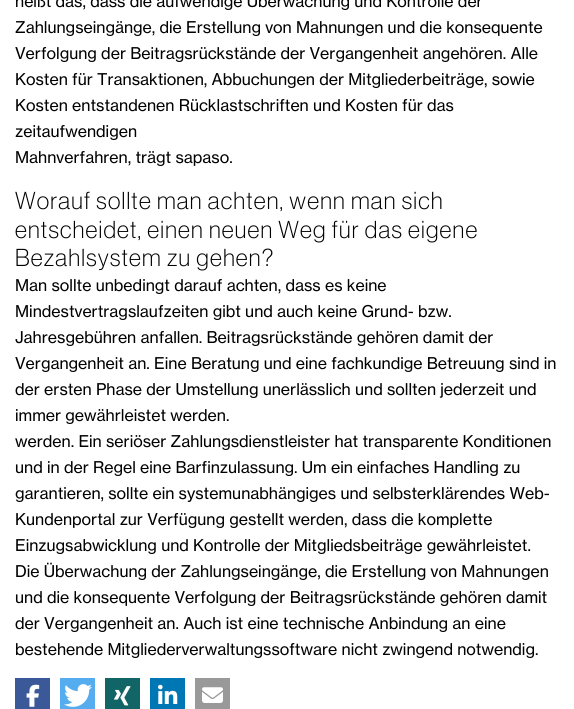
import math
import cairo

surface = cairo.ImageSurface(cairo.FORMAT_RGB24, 574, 709)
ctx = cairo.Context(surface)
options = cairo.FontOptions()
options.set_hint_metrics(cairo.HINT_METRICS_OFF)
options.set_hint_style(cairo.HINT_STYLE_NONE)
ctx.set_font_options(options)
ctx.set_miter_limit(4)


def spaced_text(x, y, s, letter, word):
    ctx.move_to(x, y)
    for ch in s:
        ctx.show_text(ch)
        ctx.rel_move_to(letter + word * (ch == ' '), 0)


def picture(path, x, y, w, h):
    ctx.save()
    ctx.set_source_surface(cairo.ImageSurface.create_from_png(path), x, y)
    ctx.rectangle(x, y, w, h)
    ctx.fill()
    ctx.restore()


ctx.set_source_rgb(1, 1, 1)
ctx.paint()
ctx.select_font_face("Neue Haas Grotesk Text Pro")
ctx.set_font_size(16)
ctx.set_source_rgb(0, 0, 0)
ctx.move_to(15, 7)
ctx.show_text("heißt das, dass die aufwendige Überwachung und Kontrolle der")
ctx.move_to(15, 33)
ctx.show_text("Zahlungseingänge, die Erstellung von Mahnungen und die konsequente")
ctx.move_to(15, 59)
ctx.show_text("Verfolgung der Beitragsrückstände der Vergangenheit angehören. Alle")
ctx.move_to(15, 85)
ctx.show_text("Kosten für Transaktionen, Abbuchungen der Mitgliederbeiträge, sowie")
ctx.move_to(15, 111)
ctx.show_text("Kosten entstandenen Rücklastschriften und Kosten für das")
ctx.move_to(15, 137)
ctx.show_text("zeitaufwendigen")
ctx.move_to(15, 163)
ctx.show_text("Mahnverfahren, trägt sapaso.")
ctx.select_font_face("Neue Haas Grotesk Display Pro")
ctx.set_font_size(24)
spaced_text(15, 209, "Worauf sollte man achten, wenn man sich", 1.2, 0)
spaced_text(15, 238, "entscheidet, einen neuen Weg für das eigene", 1.2, 0)
spaced_text(15, 266, "Bezahlsystem zu gehen?", 1.2, 0)
ctx.select_font_face("Neue Haas Grotesk Text Pro")
ctx.set_font_size(16)
ctx.move_to(15, 291)
ctx.show_text("Man sollte unbedingt darauf achten, dass es keine")
ctx.move_to(15, 317)
ctx.show_text("Mindestvertragslaufzeiten gibt und auch keine Grund- bzw.")
ctx.move_to(15, 343)
ctx.show_text("Jahresgebühren anfallen. Beitragsrückstände gehören damit der")
ctx.move_to(15, 369)
ctx.show_text("Vergangenheit an. Eine Beratung und eine fachkundige Betreuung sind in")
ctx.move_to(15, 395)
ctx.show_text("der ersten Phase der Umstellung unerlässlich und sollten jederzeit und")
ctx.move_to(15, 421)
ctx.show_text("immer gewährleistet werden.")
ctx.move_to(15, 447)
ctx.show_text("werden. Ein seriöser Zahlungsdienstleister hat transparente Konditionen")
ctx.move_to(15, 473)
ctx.show_text("und in der Regel eine Barfinzulassung. Um ein einfaches Handling zu")
ctx.move_to(15, 499)
ctx.show_text("garantieren, sollte ein systemunabhängiges und selbsterklärendes Web-")
ctx.move_to(15, 525)
ctx.show_text("Kundenportal zur Verfügung gestellt werden, dass die komplette")
ctx.move_to(15, 551)
ctx.show_text("Einzugsabwicklung und Kontrolle der Mitgliedsbeiträge gewährleistet.")
ctx.move_to(15, 577)
ctx.show_text("Die Überwachung der Zahlungseingänge, die Erstellung von Mahnungen")
ctx.move_to(15, 603)
ctx.show_text("und die konsequente Verfolgung der Beitragsrückstände gehören damit")
ctx.move_to(15, 629)
ctx.show_text("der Vergangenheit an. Auch ist eine technische Anbindung an eine")
ctx.move_to(15, 655)
ctx.show_text("bestehende Mitgliederverwaltungssoftware nicht zwingend notwendig.")
ctx.set_source_rgb(0.231, 0.349, 0.596)
ctx.rectangle(15, 678, 35, 31)
ctx.fill()
picture("img1.png", 26, 684, 14, 23)
ctx.set_source_rgb(0.333, 0.675, 0.933)
ctx.rectangle(60, 678, 35, 31)
ctx.fill()
picture("img2.png", 64, 684, 28, 23)
ctx.set_source_rgb(0.071, 0.396, 0.404)
ctx.rectangle(105, 678, 35, 31)
ctx.fill()
picture("img3.png", 114, 686, 17, 20)
ctx.set_source_rgb(0, 0.467, 0.71)
ctx.rectangle(150, 678, 35, 31)
ctx.fill()
picture("img4.png", 158, 684, 20, 20)
ctx.set_source_rgb(0.6, 0.6, 0.6)
ctx.rectangle(195, 678, 35, 31)
ctx.fill()
picture("img5.png", 202, 687, 21, 16)
surface.write_to_png("page.png")
